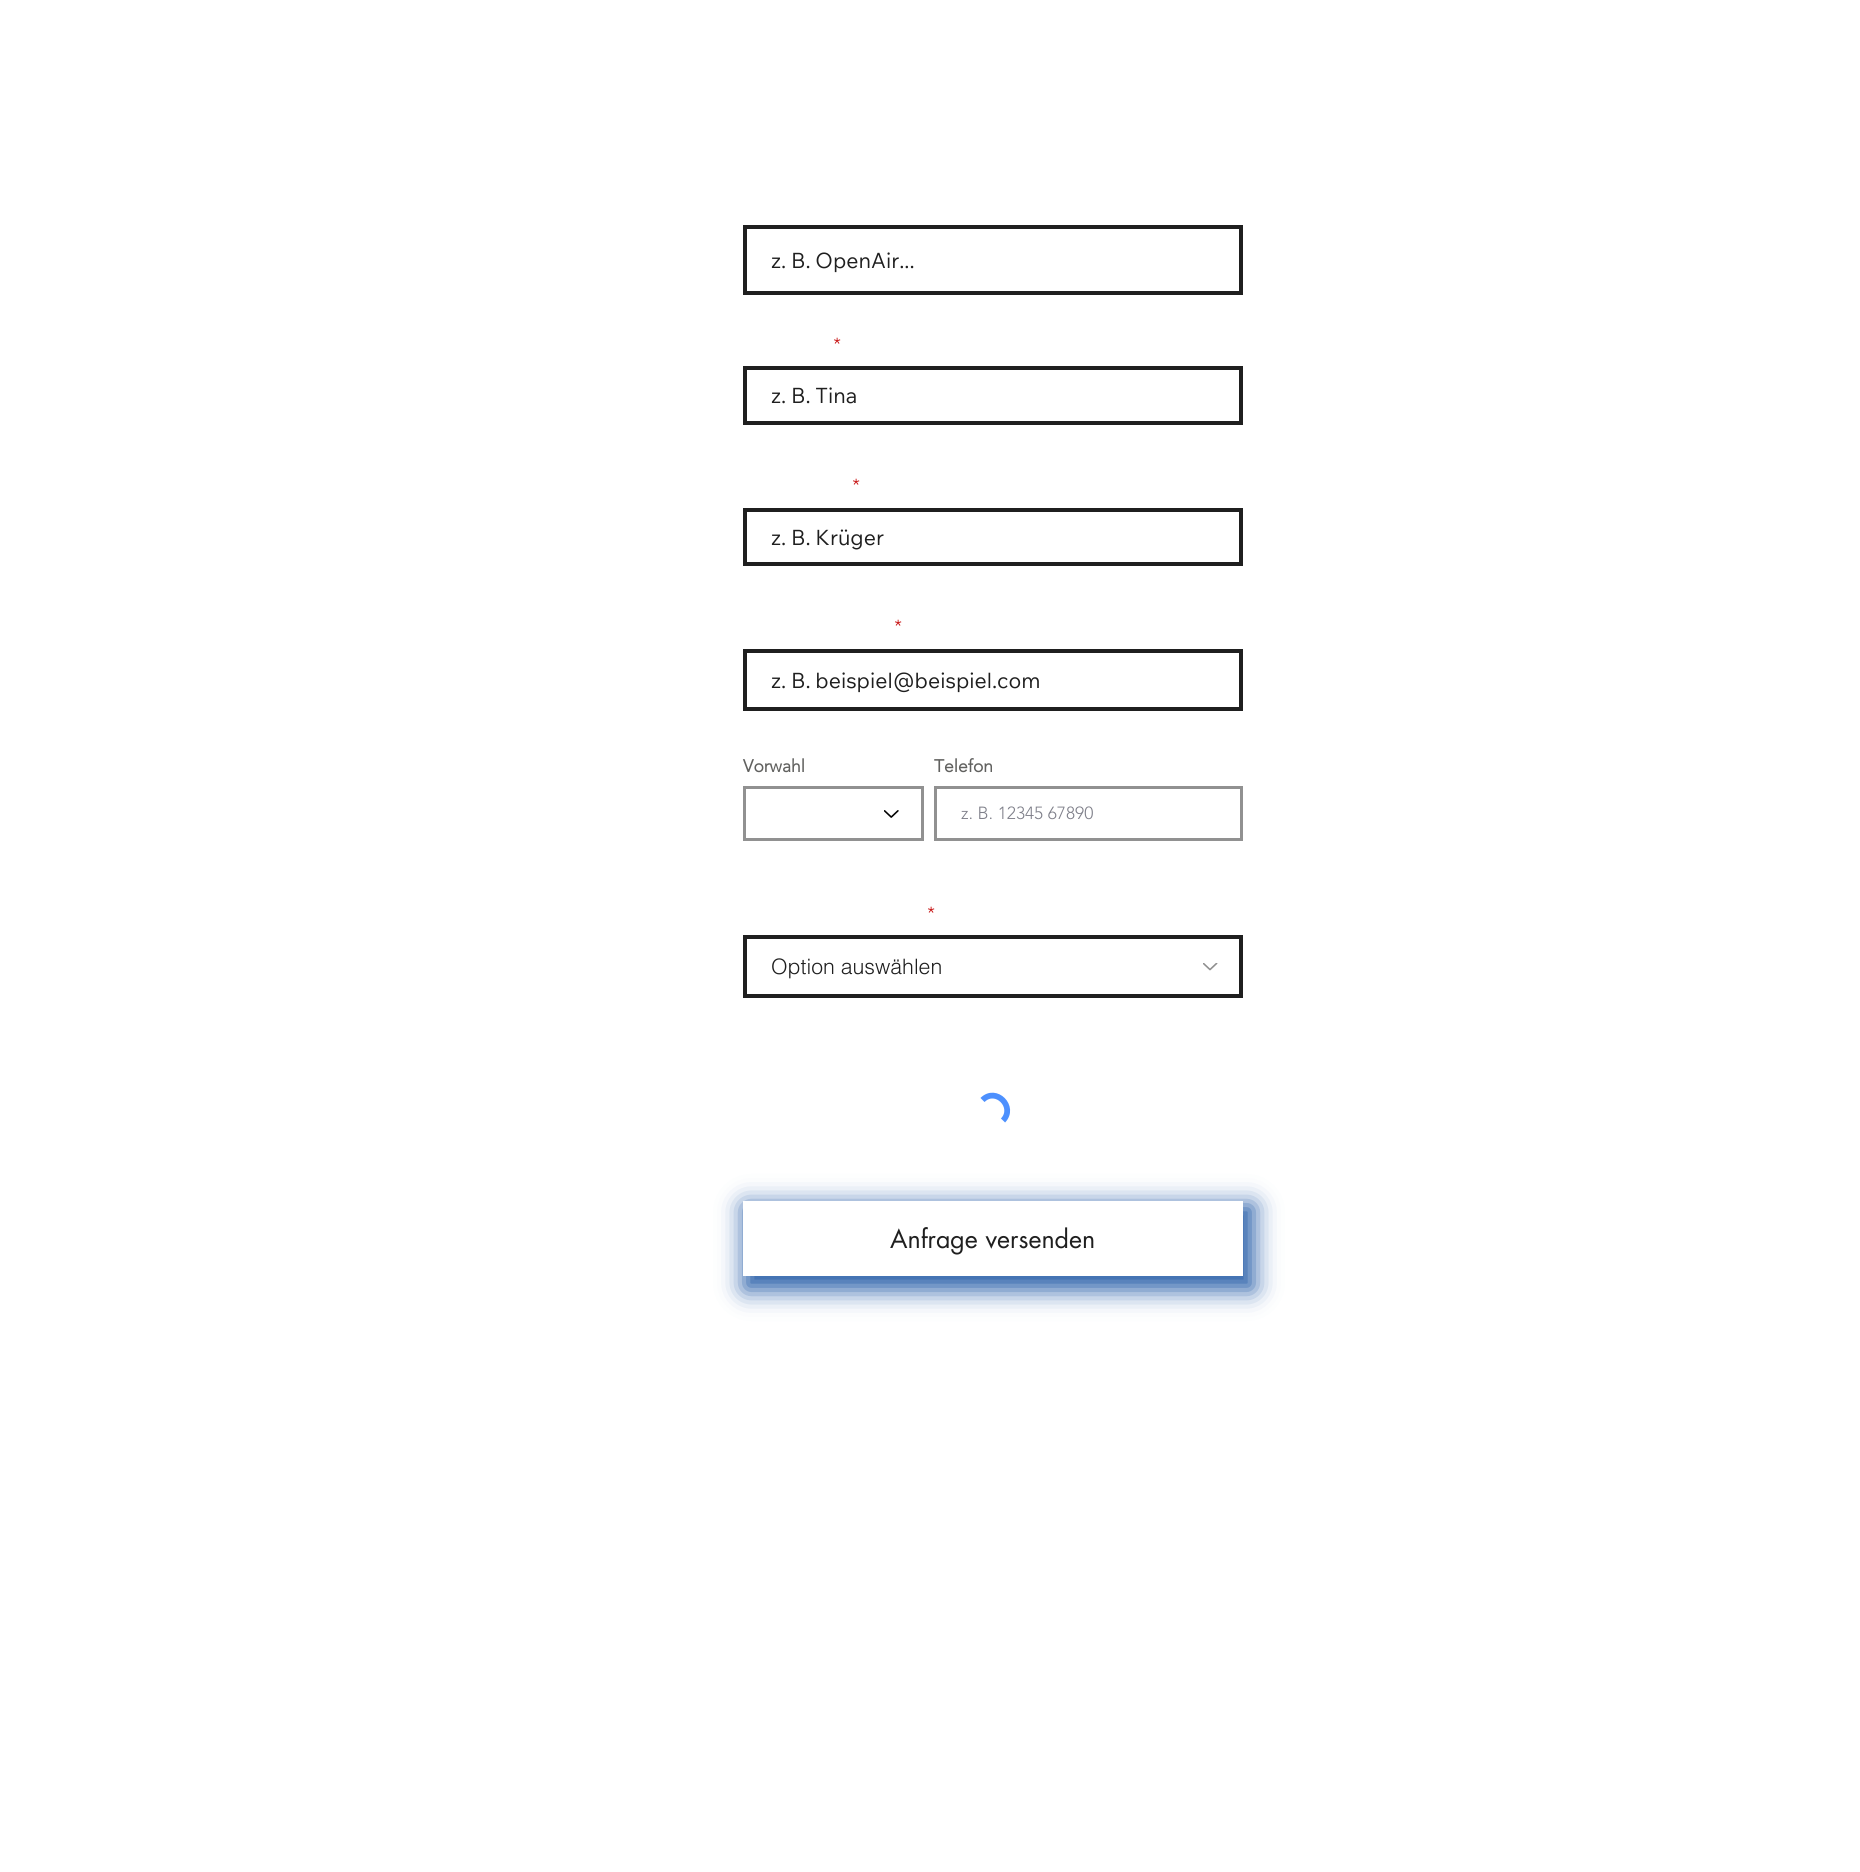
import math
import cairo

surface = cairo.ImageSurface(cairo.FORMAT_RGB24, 1860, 1872)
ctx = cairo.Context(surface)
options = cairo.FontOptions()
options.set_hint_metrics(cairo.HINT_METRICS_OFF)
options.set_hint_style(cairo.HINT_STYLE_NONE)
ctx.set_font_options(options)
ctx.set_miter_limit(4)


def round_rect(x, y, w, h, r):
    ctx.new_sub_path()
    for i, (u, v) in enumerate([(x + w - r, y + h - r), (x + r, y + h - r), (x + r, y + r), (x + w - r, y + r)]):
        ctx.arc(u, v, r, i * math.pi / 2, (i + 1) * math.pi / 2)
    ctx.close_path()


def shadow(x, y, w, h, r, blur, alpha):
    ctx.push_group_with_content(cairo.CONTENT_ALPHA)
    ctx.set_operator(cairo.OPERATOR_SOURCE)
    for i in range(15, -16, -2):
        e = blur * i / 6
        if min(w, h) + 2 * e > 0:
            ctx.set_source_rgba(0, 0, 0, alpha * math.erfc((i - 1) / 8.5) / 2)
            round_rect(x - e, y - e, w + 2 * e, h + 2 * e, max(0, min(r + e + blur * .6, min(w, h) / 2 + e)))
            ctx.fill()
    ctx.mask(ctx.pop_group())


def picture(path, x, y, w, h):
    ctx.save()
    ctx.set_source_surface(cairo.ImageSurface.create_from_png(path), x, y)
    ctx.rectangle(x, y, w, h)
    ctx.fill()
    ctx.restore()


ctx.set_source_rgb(1, 1, 1)
ctx.paint()
ctx.rectangle(745, 227, 496, 66)
ctx.set_source_rgb(0.122, 0.122, 0.122)
ctx.set_line_width(4)
ctx.stroke()
ctx.select_font_face("Wix Madefor Text")
ctx.set_font_size(21.25)
ctx.move_to(771, 268)
ctx.show_text("z. B. OpenAir...")
ctx.select_font_face("helvetica Light")
ctx.set_source_rgb(0.78, 0.071, 0.071)
ctx.move_to(833, 353)
ctx.show_text("*")
ctx.rectangle(745, 368, 496, 55)
ctx.set_source_rgb(0.122, 0.122, 0.122)
ctx.stroke()
ctx.select_font_face("Wix Madefor Text")
ctx.move_to(771, 403)
ctx.show_text("z. B. Tina")
ctx.select_font_face("helvetica Light")
ctx.set_source_rgb(0.78, 0.071, 0.071)
ctx.move_to(852, 494)
ctx.show_text("*")
ctx.rectangle(745, 510, 496, 54)
ctx.set_source_rgb(0.122, 0.122, 0.122)
ctx.stroke()
ctx.select_font_face("Wix Madefor Text")
ctx.move_to(771, 545)
ctx.show_text("z. B. Krüger")
ctx.select_font_face("helvetica Light")
ctx.set_source_rgb(0.78, 0.071, 0.071)
ctx.move_to(894, 635)
ctx.show_text("*")
ctx.rectangle(745, 651, 496, 58)
ctx.set_source_rgb(0.122, 0.122, 0.122)
ctx.stroke()
ctx.select_font_face("Wix Madefor Text")
ctx.move_to(771, 688)
ctx.show_text("z. B. beispiel@beispiel.com")
ctx.select_font_face("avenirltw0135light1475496", cairo.FONT_SLANT_NORMAL, cairo.FONT_WEIGHT_BOLD)
ctx.set_font_size(17.5)
ctx.set_source_rgb(0.38, 0.38, 0.373)
ctx.move_to(743, 772)
ctx.show_text("Vorwahl")
ctx.rectangle(744.5, 787.5, 178, 52)
ctx.set_source_rgb(0.569, 0.569, 0.569)
ctx.set_line_width(3)
ctx.stroke()
picture("img1.png", 884, 810, 15, 8)
ctx.set_source_rgb(0.38, 0.38, 0.373)
ctx.move_to(934, 772)
ctx.show_text("Telefon")
ctx.rectangle(935.5, 787.5, 306, 52)
ctx.set_source_rgb(0.569, 0.569, 0.569)
ctx.stroke()
ctx.select_font_face("avenirltw0135light1475496 Light")
ctx.set_source_rgb(0.498, 0.502, 0.541)
ctx.move_to(961, 819)
ctx.show_text("z. B. 12345 67890")
ctx.select_font_face("helvetica Light")
ctx.set_font_size(21.25)
ctx.set_source_rgb(0.78, 0.071, 0.071)
ctx.move_to(927, 922)
ctx.show_text("*")
ctx.rectangle(745, 937, 496, 59)
ctx.set_source_rgb(0.122, 0.122, 0.122)
ctx.set_line_width(4)
ctx.stroke()
ctx.move_to(771, 974)
ctx.show_text("Option auswählen")
picture("img2.png", 1203, 963, 15, 8)
ctx.new_path()
ctx.move_to(982.5, 1100)
ctx.curve_to(996, 1086.5, 1016, 1107, 1003, 1120.5)
ctx.set_source_rgb(0.302, 0.565, 0.996)
ctx.set_line_width(5.8)
ctx.stroke()
ctx.set_source_rgb(0.133, 0.353, 0.651)
shadow(744, 1205, 510, 85, 0, 12.5, 1)
ctx.set_source_rgb(1, 1, 1)
ctx.rectangle(743, 1201, 500, 75)
ctx.fill()
ctx.select_font_face("futura")
ctx.set_font_size(25)
ctx.set_source_rgb(0.122, 0.122, 0.122)
ctx.move_to(890, 1248)
ctx.show_text("Anfrage versenden")
surface.write_to_png("page.png")
